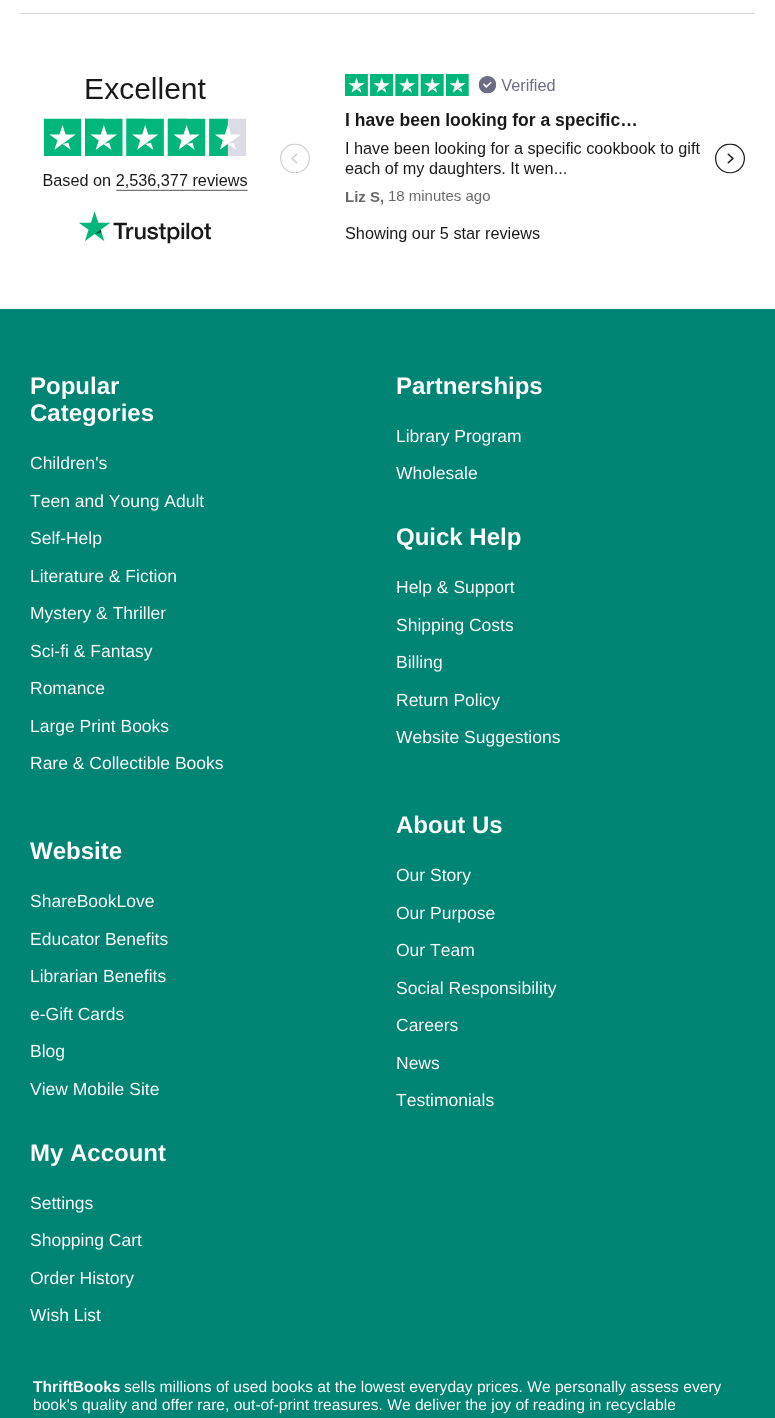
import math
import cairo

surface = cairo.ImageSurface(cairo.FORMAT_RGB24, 775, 1418)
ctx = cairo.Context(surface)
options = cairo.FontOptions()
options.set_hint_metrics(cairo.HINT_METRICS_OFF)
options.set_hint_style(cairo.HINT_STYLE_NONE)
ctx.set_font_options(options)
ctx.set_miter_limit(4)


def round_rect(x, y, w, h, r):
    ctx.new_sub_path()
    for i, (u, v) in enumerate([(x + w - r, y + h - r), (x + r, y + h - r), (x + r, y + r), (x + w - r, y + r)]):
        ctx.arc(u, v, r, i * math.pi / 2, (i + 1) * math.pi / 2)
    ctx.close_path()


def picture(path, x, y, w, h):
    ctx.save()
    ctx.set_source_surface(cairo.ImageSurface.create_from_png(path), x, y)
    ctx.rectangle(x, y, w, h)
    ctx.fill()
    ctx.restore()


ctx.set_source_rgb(1, 1, 1)
ctx.paint()
ctx.set_source_rgb(0.843, 0.843, 0.843)
round_rect(20, 13, 735, 1, 0.5)
ctx.fill()
picture("img1.png", 43, 73, 702, 171)
ctx.set_source_rgb(0, 0.522, 0.459)
ctx.rectangle(0, 309, 775, 1109)
ctx.fill()
ctx.select_font_face("Liberation Sans", cairo.FONT_SLANT_NORMAL, cairo.FONT_WEIGHT_BOLD)
ctx.set_font_size(24)
ctx.set_source_rgb(1, 1, 1)
ctx.move_to(30, 394)
ctx.show_text("Popular")
ctx.move_to(30, 421)
ctx.show_text("Categories")
ctx.select_font_face("Liberation Sans")
ctx.set_font_size(17.5)
ctx.move_to(30, 469)
ctx.show_text("Children's")
ctx.move_to(30, 507)
ctx.show_text("Teen and Young Adult")
ctx.move_to(30, 544)
ctx.show_text("Self-Help")
ctx.move_to(30, 582)
ctx.show_text("Literature & Fiction")
ctx.move_to(30, 619)
ctx.show_text("Mystery & Thriller")
ctx.move_to(30, 657)
ctx.show_text("Sci-fi & Fantasy")
ctx.move_to(30, 694)
ctx.show_text("Romance")
ctx.move_to(30, 732)
ctx.show_text("Large Print Books")
ctx.move_to(30, 769)
ctx.show_text("Rare & Collectible Books")
ctx.select_font_face("Liberation Sans", cairo.FONT_SLANT_NORMAL, cairo.FONT_WEIGHT_BOLD)
ctx.set_font_size(24)
ctx.move_to(30, 859)
ctx.show_text("Website")
ctx.select_font_face("Liberation Sans")
ctx.set_font_size(17.5)
ctx.move_to(30, 907)
ctx.show_text("ShareBookLove")
ctx.move_to(30, 945)
ctx.show_text("Educator Benefits")
ctx.move_to(30, 982)
ctx.show_text("Librarian Benefits")
ctx.move_to(30, 1020)
ctx.show_text("e-Gift Cards")
ctx.move_to(30, 1057)
ctx.show_text("Blog")
ctx.move_to(30, 1095)
ctx.show_text("View Mobile Site")
ctx.select_font_face("Liberation Sans", cairo.FONT_SLANT_NORMAL, cairo.FONT_WEIGHT_BOLD)
ctx.set_font_size(24)
ctx.move_to(30, 1161)
ctx.show_text("My Account")
ctx.select_font_face("Liberation Sans")
ctx.set_font_size(17.5)
ctx.move_to(30, 1209)
ctx.show_text("Settings")
ctx.move_to(30, 1246)
ctx.show_text("Shopping Cart")
ctx.move_to(30, 1284)
ctx.show_text("Order History")
ctx.move_to(30, 1321)
ctx.show_text("Wish List")
ctx.select_font_face("Liberation Sans", cairo.FONT_SLANT_NORMAL, cairo.FONT_WEIGHT_BOLD)
ctx.set_font_size(24)
ctx.move_to(396, 394)
ctx.show_text("Partnerships")
ctx.select_font_face("Liberation Sans")
ctx.set_font_size(17.5)
ctx.move_to(396, 442)
ctx.show_text("Library Program")
ctx.move_to(396, 479)
ctx.show_text("Wholesale")
ctx.select_font_face("Liberation Sans", cairo.FONT_SLANT_NORMAL, cairo.FONT_WEIGHT_BOLD)
ctx.set_font_size(24)
ctx.move_to(396, 545)
ctx.show_text("Quick Help")
ctx.select_font_face("Liberation Sans")
ctx.set_font_size(17.5)
ctx.move_to(396, 593)
ctx.show_text("Help & Support")
ctx.move_to(396, 631)
ctx.show_text("Shipping Costs")
ctx.move_to(396, 668)
ctx.show_text("Billing")
ctx.move_to(396, 706)
ctx.show_text("Return Policy")
ctx.move_to(396, 743)
ctx.show_text("Website Suggestions")
ctx.select_font_face("Liberation Sans", cairo.FONT_SLANT_NORMAL, cairo.FONT_WEIGHT_BOLD)
ctx.set_font_size(24)
ctx.move_to(396, 833)
ctx.show_text("About Us")
ctx.select_font_face("Liberation Sans")
ctx.set_font_size(17.5)
ctx.move_to(396, 881)
ctx.show_text("Our Story")
ctx.move_to(396, 919)
ctx.show_text("Our Purpose")
ctx.move_to(396, 956)
ctx.show_text("Our Team")
ctx.move_to(396, 994)
ctx.show_text("Social Responsibility")
ctx.move_to(396, 1031)
ctx.show_text("Careers")
ctx.move_to(396, 1069)
ctx.show_text("News")
ctx.move_to(396, 1106)
ctx.show_text("Testimonials")
ctx.select_font_face("Liberation Sans", cairo.FONT_SLANT_NORMAL, cairo.FONT_WEIGHT_BOLD)
ctx.set_font_size(15.6)
ctx.move_to(33, 1392)
ctx.show_text("ThriftBooks")
ctx.select_font_face("Liberation Sans")
ctx.move_to(124, 1392)
ctx.show_text("sells millions of used books at the lowest everyday prices. We personally assess every")
ctx.move_to(33, 1410)
ctx.show_text("book's quality and offer rare, out-of-print treasures. We deliver the joy of reading in recyclable")
surface.write_to_png("page.png")
